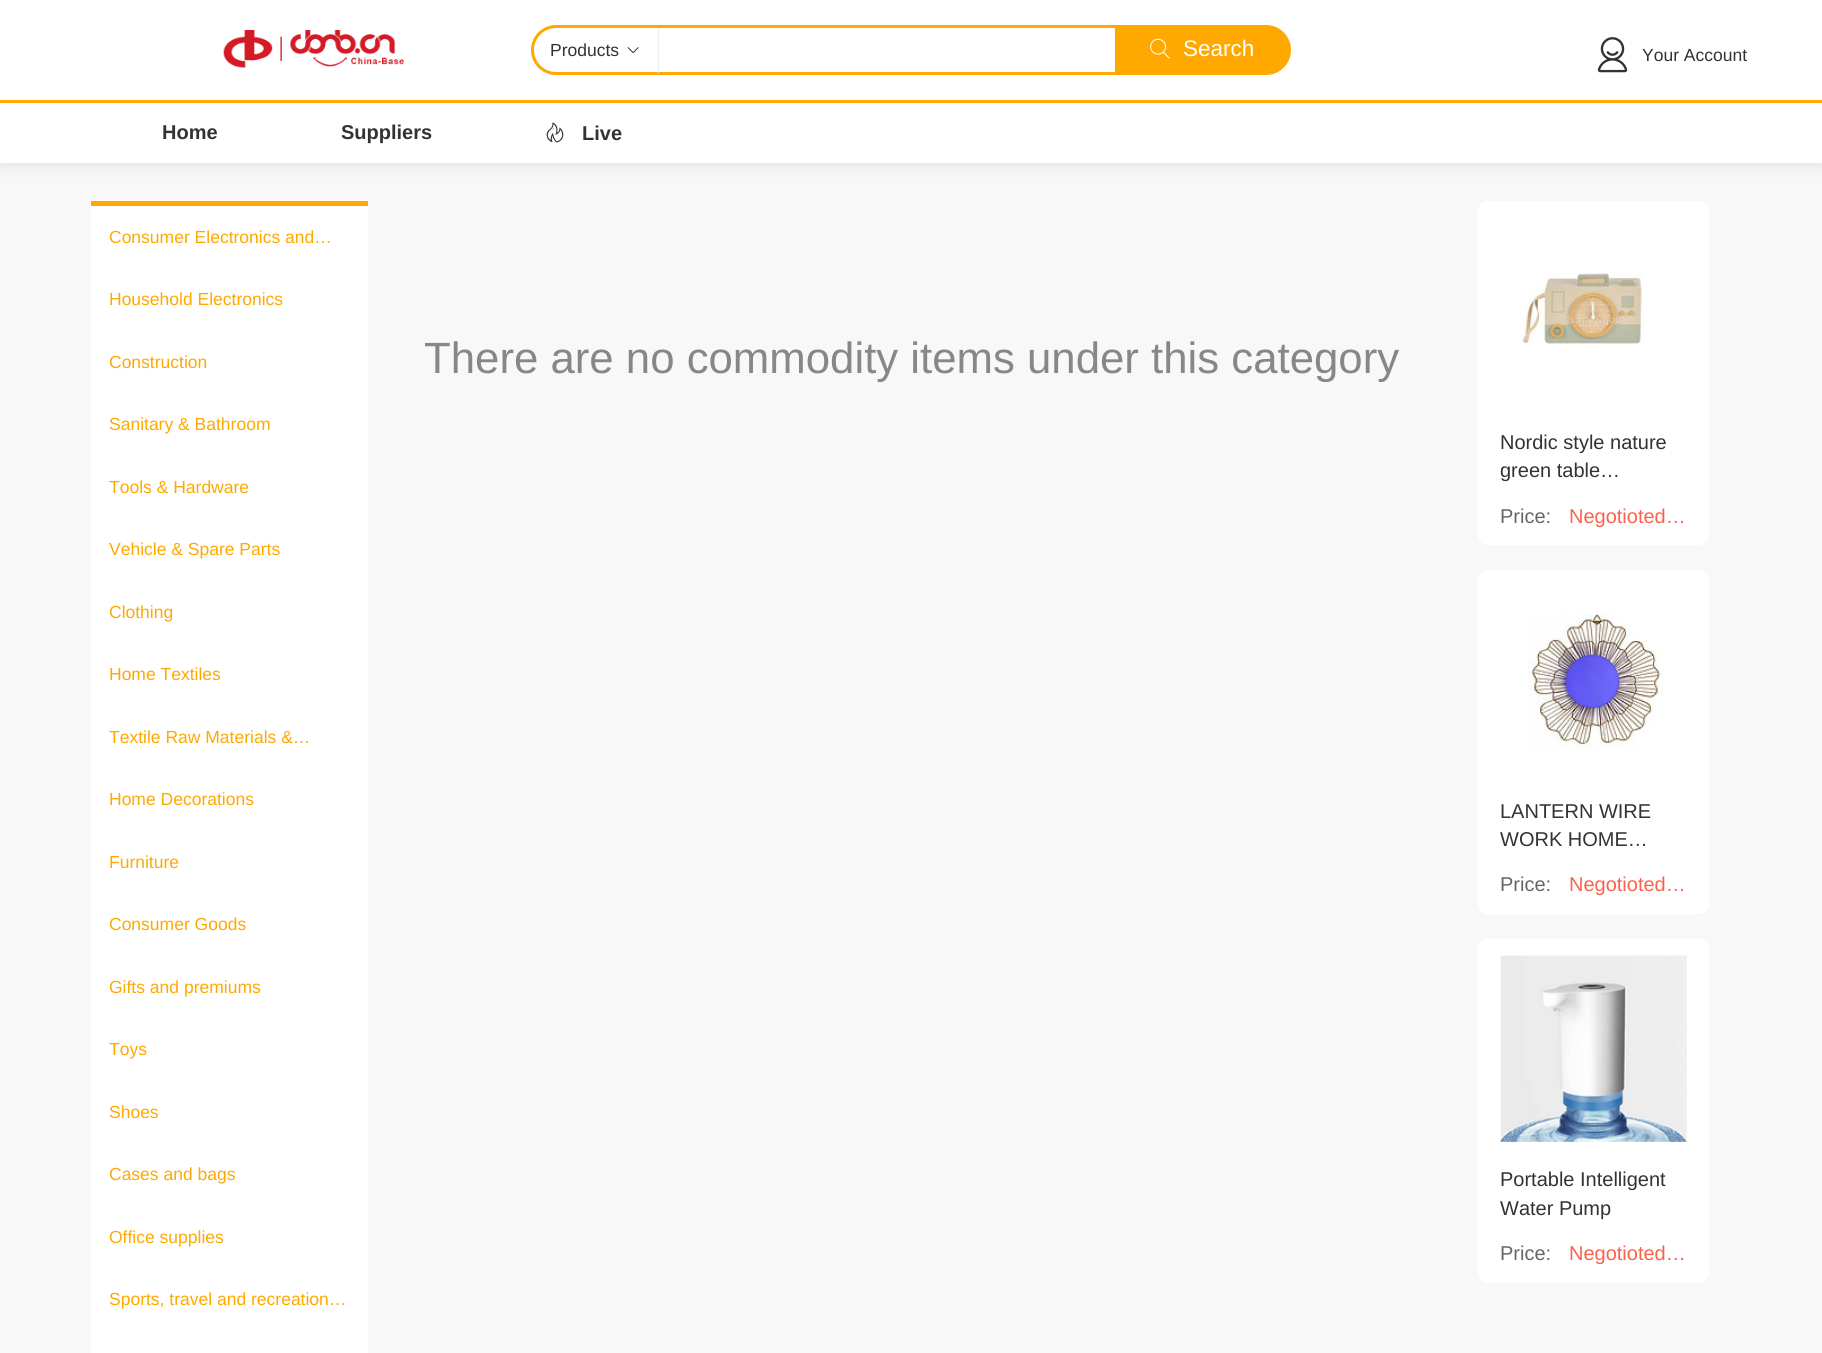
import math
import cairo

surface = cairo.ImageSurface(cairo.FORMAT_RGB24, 1822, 1353)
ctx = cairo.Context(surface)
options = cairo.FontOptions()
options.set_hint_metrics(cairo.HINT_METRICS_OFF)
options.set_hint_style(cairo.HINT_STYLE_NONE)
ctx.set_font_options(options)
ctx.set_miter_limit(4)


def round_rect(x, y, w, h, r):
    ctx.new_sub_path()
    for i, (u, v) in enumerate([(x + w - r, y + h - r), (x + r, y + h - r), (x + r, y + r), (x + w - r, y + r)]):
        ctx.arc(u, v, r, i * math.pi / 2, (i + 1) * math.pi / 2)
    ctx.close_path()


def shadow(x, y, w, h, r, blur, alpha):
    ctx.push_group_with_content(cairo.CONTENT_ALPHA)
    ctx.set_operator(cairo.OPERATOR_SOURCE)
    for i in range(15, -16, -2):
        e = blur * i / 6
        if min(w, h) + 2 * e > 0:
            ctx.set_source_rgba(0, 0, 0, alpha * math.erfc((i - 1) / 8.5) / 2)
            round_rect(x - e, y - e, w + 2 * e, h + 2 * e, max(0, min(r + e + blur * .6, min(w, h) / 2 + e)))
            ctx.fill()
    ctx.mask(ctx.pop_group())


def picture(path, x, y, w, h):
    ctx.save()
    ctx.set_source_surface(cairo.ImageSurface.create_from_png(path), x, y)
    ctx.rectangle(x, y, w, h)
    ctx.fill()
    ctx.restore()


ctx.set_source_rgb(0.969, 0.969, 0.969)
ctx.paint()
ctx.set_source_rgb(0, 0, 0)
shadow(0, 3, 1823, 162, 0, 7.5, 0.1)
ctx.set_source_rgb(1, 1, 1)
ctx.rectangle(0, 0, 1822, 163)
ctx.fill()
ctx.set_source_rgb(1, 0.659, 0)
ctx.rectangle(0, 100, 1822, 3)
ctx.fill()
picture("img1.png", 223, 30, 181, 38)
round_rect(532.5, 26.5, 757, 47, 23.5)
ctx.set_line_width(3)
ctx.stroke()
ctx.set_source_rgb(0.933, 0.933, 0.933)
ctx.rectangle(658, 28, 1, 45)
ctx.fill()
ctx.select_font_face("Liberation Sans")
ctx.set_font_size(17.5)
ctx.set_source_rgb(0.2, 0.2, 0.2)
ctx.move_to(550, 56)
ctx.show_text("Products")
picture("img2.png", 627, 47, 12, 7)
ctx.set_source_rgb(1, 0.659, 0)
ctx.new_path()
ctx.move_to(1115, 26)
ctx.line_to(1266, 26)
ctx.curve_to(1279.5, 26, 1290, 36.5, 1290, 50)
ctx.curve_to(1290, 63.5, 1279.5, 74, 1266, 74)
ctx.line_to(1115, 74)
ctx.close_path()
ctx.fill()
picture("img3.png", 1150, 38, 20, 21)
ctx.set_font_size(22.5)
ctx.set_source_rgb(1, 1, 1)
ctx.move_to(1183, 56)
ctx.show_text("Search")
picture("img4.png", 1597, 37, 31, 36)
ctx.set_font_size(17.5)
ctx.set_source_rgb(0.2, 0.2, 0.2)
ctx.move_to(1642, 61)
ctx.show_text("Your Account")
ctx.select_font_face("Liberation Sans", cairo.FONT_SLANT_NORMAL, cairo.FONT_WEIGHT_BOLD)
ctx.set_font_size(20)
ctx.move_to(162, 139)
ctx.show_text("Home")
ctx.move_to(341, 139)
ctx.show_text("Suppliers")
picture("img5.png", 546, 122, 18, 21)
ctx.move_to(582, 140)
ctx.show_text("Live")
ctx.set_source_rgb(1, 1, 1)
ctx.rectangle(91, 206, 277, 1147)
ctx.fill()
ctx.set_source_rgb(1, 0.659, 0)
ctx.rectangle(91, 201, 277, 5)
ctx.fill()
ctx.select_font_face("Liberation Sans")
ctx.set_font_size(17.5)
ctx.move_to(109, 243)
ctx.show_text("Consumer Electronics and…")
ctx.move_to(109, 305)
ctx.show_text("Household Electronics")
ctx.move_to(109, 368)
ctx.show_text("Construction")
ctx.move_to(109, 430)
ctx.show_text("Sanitary & Bathroom")
ctx.move_to(109, 493)
ctx.show_text("Tools & Hardware")
ctx.move_to(109, 555)
ctx.show_text("Vehicle & Spare Parts")
ctx.move_to(109, 618)
ctx.show_text("Clothing")
ctx.move_to(109, 680)
ctx.show_text("Home Textiles")
ctx.move_to(109, 743)
ctx.show_text("Textile Raw Materials &…")
ctx.move_to(109, 805)
ctx.show_text("Home Decorations")
ctx.move_to(109, 868)
ctx.show_text("Furniture")
ctx.move_to(109, 930)
ctx.show_text("Consumer Goods")
ctx.move_to(109, 993)
ctx.show_text("Gifts and premiums")
ctx.move_to(109, 1055)
ctx.show_text("Toys")
ctx.move_to(109, 1118)
ctx.show_text("Shoes")
ctx.move_to(109, 1180)
ctx.show_text("Cases and bags")
ctx.move_to(109, 1243)
ctx.show_text("Office supplies")
ctx.move_to(109, 1305)
ctx.show_text("Sports, travel and recreation…")
ctx.set_font_size(43.75)
ctx.set_source_rgb(0.529, 0.529, 0.529)
ctx.move_to(424, 373)
ctx.show_text("There are no commodity items under this category")
ctx.set_source_rgb(1, 1, 1)
round_rect(1478, 201, 231, 344, 10)
ctx.fill()
picture("img6.png", 1519, 272, 126, 73)
ctx.set_font_size(20)
ctx.set_source_rgb(0.2, 0.2, 0.2)
ctx.move_to(1500, 449)
ctx.show_text("Nordic style nature")
ctx.move_to(1500, 477)
ctx.show_text("green table…")
ctx.set_source_rgb(0.4, 0.4, 0.4)
ctx.move_to(1500, 523)
ctx.show_text("Price:")
ctx.set_source_rgb(0.988, 0.38, 0.294)
ctx.move_to(1569, 523)
ctx.show_text("Negotioted…")
ctx.set_source_rgb(1, 1, 1)
round_rect(1478, 570, 231, 344, 10)
ctx.fill()
picture("img7.png", 1527, 614, 136, 136)
ctx.set_source_rgb(0.2, 0.2, 0.2)
ctx.move_to(1500, 818)
ctx.show_text("LANTERN WIRE")
ctx.move_to(1500, 846)
ctx.show_text("WORK HOME…")
ctx.set_source_rgb(0.4, 0.4, 0.4)
ctx.move_to(1500, 891)
ctx.show_text("Price:")
ctx.set_source_rgb(0.988, 0.38, 0.294)
ctx.move_to(1569, 891)
ctx.show_text("Negotioted…")
ctx.set_source_rgb(1, 1, 1)
round_rect(1478, 939, 231, 344, 10)
ctx.fill()
picture("img8.png", 1500, 955, 187, 187)
ctx.set_source_rgb(0.2, 0.2, 0.2)
ctx.move_to(1500, 1186)
ctx.show_text("Portable Intelligent")
ctx.move_to(1500, 1215)
ctx.show_text("Water Pump")
ctx.set_source_rgb(0.4, 0.4, 0.4)
ctx.move_to(1500, 1260)
ctx.show_text("Price:")
ctx.set_source_rgb(0.988, 0.38, 0.294)
ctx.move_to(1569, 1260)
ctx.show_text("Negotioted…")
surface.write_to_png("page.png")
